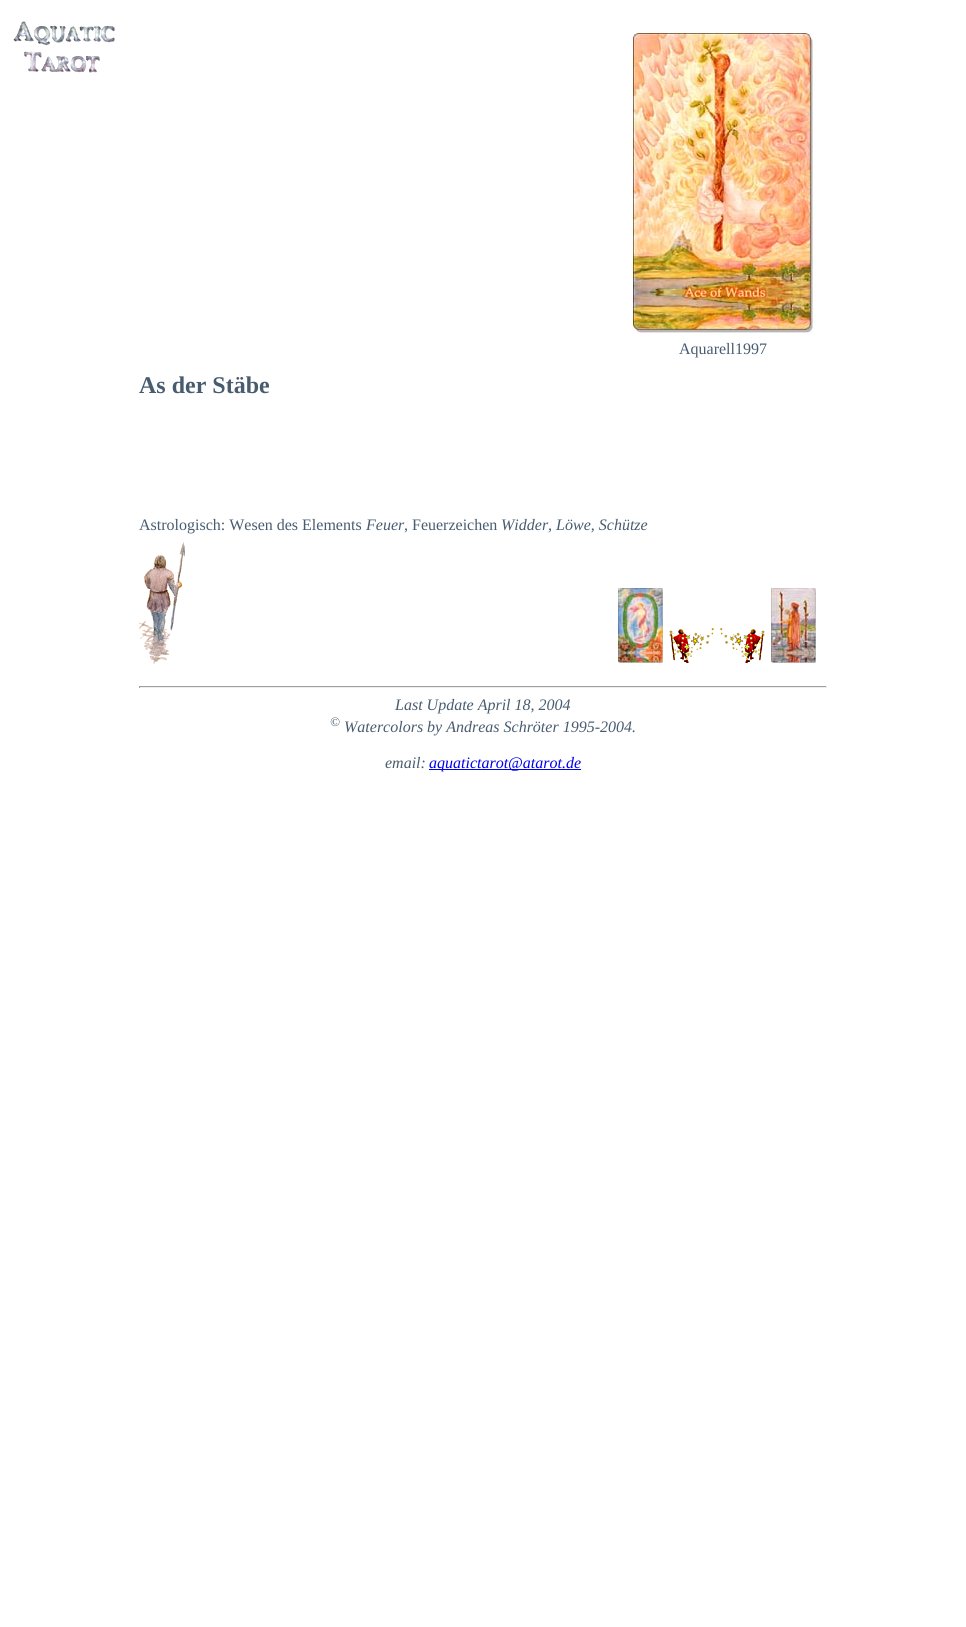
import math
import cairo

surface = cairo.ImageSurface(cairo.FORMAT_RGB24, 966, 1627)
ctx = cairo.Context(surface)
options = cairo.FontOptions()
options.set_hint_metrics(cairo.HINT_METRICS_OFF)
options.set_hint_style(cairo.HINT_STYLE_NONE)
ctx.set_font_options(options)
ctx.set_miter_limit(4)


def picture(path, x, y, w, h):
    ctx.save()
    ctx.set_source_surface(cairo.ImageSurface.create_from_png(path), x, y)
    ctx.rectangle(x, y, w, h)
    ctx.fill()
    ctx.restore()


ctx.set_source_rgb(1, 1, 1)
ctx.paint()
picture("img1.png", 13, 21, 102, 52)
picture("img2.png", 633, 33, 180, 300)
ctx.select_font_face("Liberation Serif")
ctx.set_font_size(16)
ctx.set_source_rgb(0.282, 0.361, 0.439)
ctx.move_to(679, 354)
ctx.show_text("Aquarell1997")
ctx.select_font_face("Liberation Serif", cairo.FONT_SLANT_NORMAL, cairo.FONT_WEIGHT_BOLD)
ctx.set_font_size(24)
ctx.move_to(139, 393)
ctx.show_text("As der Stäbe")
ctx.select_font_face("Liberation Serif")
ctx.set_font_size(16)
ctx.move_to(139, 530)
ctx.show_text("Astrologisch: Wesen des Elements")
ctx.select_font_face("Liberation Serif", cairo.FONT_SLANT_ITALIC)
ctx.move_to(366, 530)
ctx.show_text("Feuer")
ctx.select_font_face("Liberation Serif")
ctx.move_to(404, 530)
ctx.show_text(", Feuerzeichen")
ctx.select_font_face("Liberation Serif", cairo.FONT_SLANT_ITALIC)
ctx.move_to(501, 530)
ctx.show_text("Widder, Löwe, Schütze")
picture("img3.png", 139, 542, 46, 122)
picture("img4.png", 618, 588, 45, 75)
picture("img5.png", 669, 628, 45, 35)
picture("img6.png", 720, 628, 45, 35)
picture("img7.png", 771, 588, 45, 75)
ctx.set_source_rgb(0.624, 0.624, 0.624)
ctx.rectangle(139, 686, 688, 1)
ctx.fill()
ctx.set_source_rgb(0.933, 0.933, 0.933)
ctx.rectangle(826, 686, 1, 2)
ctx.fill()
ctx.rectangle(139, 687, 688, 1)
ctx.fill()
ctx.set_source_rgb(0.624, 0.624, 0.624)
ctx.rectangle(139, 686, 1, 2)
ctx.fill()
ctx.set_source_rgb(0.282, 0.361, 0.439)
ctx.move_to(395, 710)
ctx.show_text("Last Update April 18, 2004")
ctx.set_font_size(13)
ctx.move_to(330, 726)
ctx.show_text("©")
ctx.set_font_size(16)
ctx.move_to(344, 732)
ctx.show_text("Watercolors by Andreas Schröter 1995-2004.")
ctx.move_to(385, 768)
ctx.show_text("email:")
ctx.set_source_rgb(0, 0, 0.933)
ctx.rectangle(429, 769, 152, 1)
ctx.fill()
ctx.move_to(429, 768)
ctx.show_text("aquatictarot@atarot.de")
surface.write_to_png("page.png")
